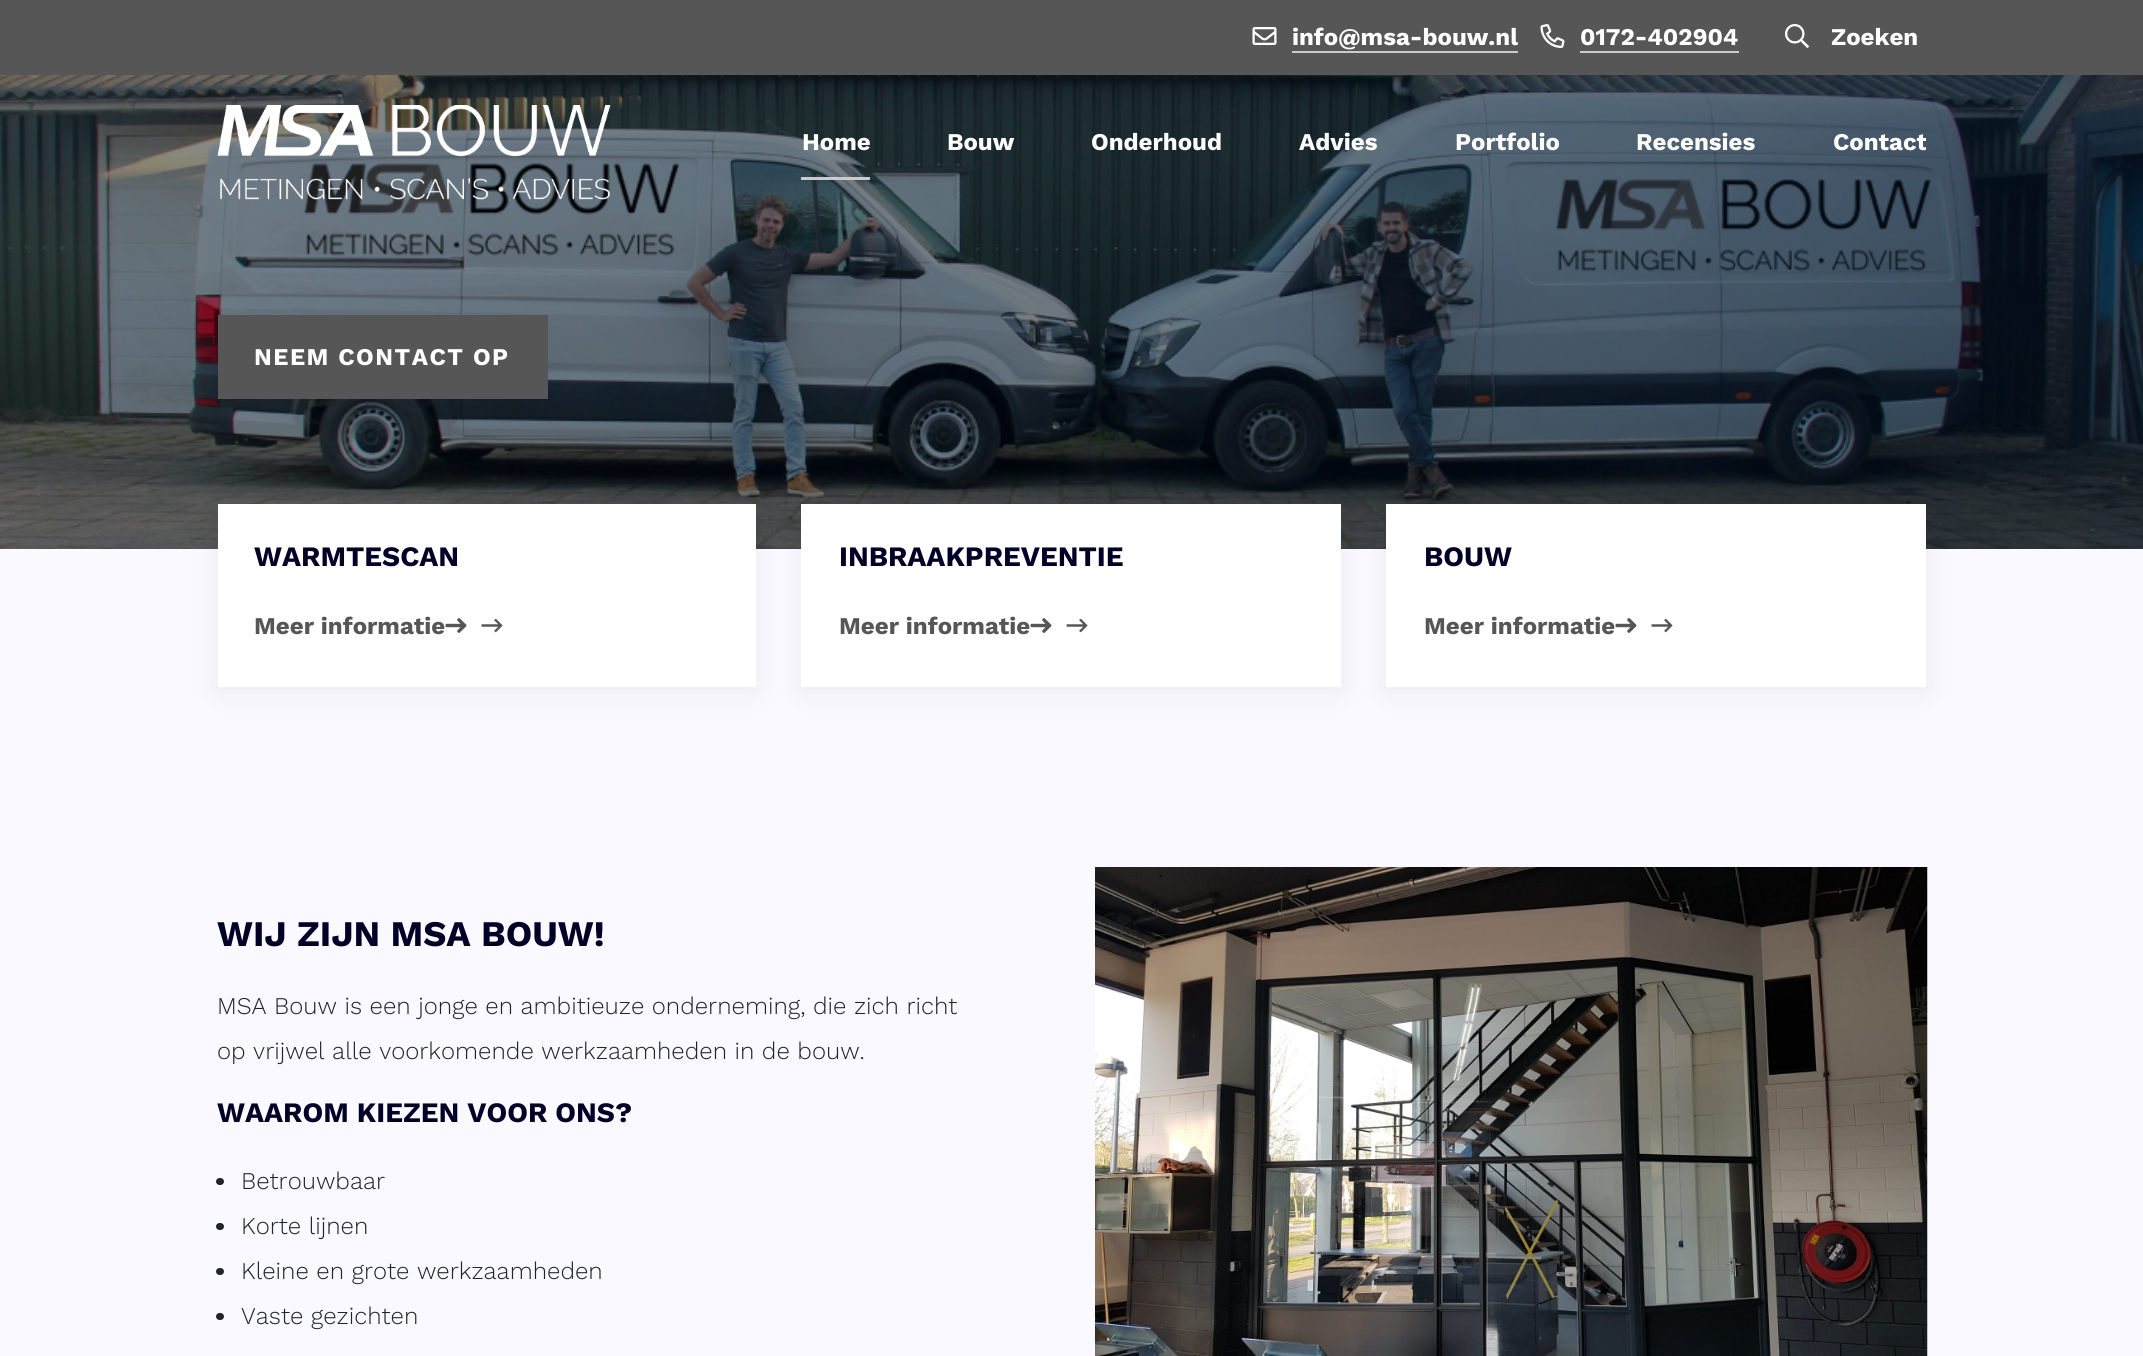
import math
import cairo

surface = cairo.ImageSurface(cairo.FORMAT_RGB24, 2143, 1356)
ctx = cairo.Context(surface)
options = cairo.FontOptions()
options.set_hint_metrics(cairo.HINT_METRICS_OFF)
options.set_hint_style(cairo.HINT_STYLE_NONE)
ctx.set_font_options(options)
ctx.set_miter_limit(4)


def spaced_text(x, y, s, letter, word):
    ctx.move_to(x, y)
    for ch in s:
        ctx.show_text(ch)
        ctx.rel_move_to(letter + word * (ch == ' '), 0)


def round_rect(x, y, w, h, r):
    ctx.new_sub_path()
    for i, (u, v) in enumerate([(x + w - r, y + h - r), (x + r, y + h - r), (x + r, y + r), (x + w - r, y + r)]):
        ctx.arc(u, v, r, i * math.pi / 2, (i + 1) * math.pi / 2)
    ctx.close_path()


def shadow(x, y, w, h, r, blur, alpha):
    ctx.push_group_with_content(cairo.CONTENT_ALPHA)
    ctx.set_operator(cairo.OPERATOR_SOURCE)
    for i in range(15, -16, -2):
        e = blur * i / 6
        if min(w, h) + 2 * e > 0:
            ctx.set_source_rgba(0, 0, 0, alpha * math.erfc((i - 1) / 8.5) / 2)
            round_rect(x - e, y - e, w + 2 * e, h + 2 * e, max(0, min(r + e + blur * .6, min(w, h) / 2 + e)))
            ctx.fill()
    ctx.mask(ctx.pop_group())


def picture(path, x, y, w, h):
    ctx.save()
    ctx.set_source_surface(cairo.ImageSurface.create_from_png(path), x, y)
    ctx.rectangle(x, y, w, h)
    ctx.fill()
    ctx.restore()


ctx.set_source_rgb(0.973, 0.976, 1)
ctx.paint()
ctx.set_source_rgb(0.341, 0.337, 0.337)
ctx.rectangle(0, 0, 2143, 75)
ctx.fill()
picture("img1.png", 1252, 27, 25, 18)
ctx.select_font_face("Work Sans", cairo.FONT_SLANT_NORMAL, cairo.FONT_WEIGHT_BOLD)
ctx.set_font_size(24)
ctx.set_source_rgb(1, 1, 1)
ctx.move_to(1292, 45)
ctx.show_text("info@msa-bouw.nl")
ctx.set_source_rgb(0.796, 0.796, 0.796)
ctx.rectangle(1292, 51, 226, 2)
ctx.fill()
picture("img2.png", 1540, 24, 25, 24)
ctx.set_source_rgb(1, 1, 1)
ctx.move_to(1580, 45)
ctx.show_text("0172-402904")
ctx.set_source_rgb(0.796, 0.796, 0.796)
ctx.rectangle(1580, 51, 159, 2)
ctx.fill()
picture("img3.png", 1785, 24, 24, 24)
ctx.set_source_rgb(1, 1, 1)
ctx.move_to(1831, 45)
ctx.show_text("Zoeken")
picture("img5.png", 0, 75, 2143, 474)
picture("img4.png", 217, 105, 394, 95)
ctx.move_to(802, 150)
ctx.show_text("Home")
ctx.set_source_rgb(0.796, 0.796, 0.796)
ctx.rectangle(801, 177, 69, 3)
ctx.fill()
ctx.set_source_rgb(1, 1, 1)
ctx.move_to(947, 150)
ctx.show_text("Bouw")
ctx.move_to(1091, 150)
ctx.show_text("Onderhoud")
ctx.move_to(1299, 150)
ctx.show_text("Advies")
ctx.move_to(1455, 150)
ctx.show_text("Portfolio")
ctx.move_to(1636, 150)
ctx.show_text("Recensies")
ctx.save()
ctx.rectangle(1833, 105, 93, 75)
ctx.clip()
ctx.move_to(1833, 150)
ctx.show_text("Contact")
ctx.restore()
ctx.set_source_rgb(0.341, 0.337, 0.337)
ctx.rectangle(218, 315, 330, 84)
ctx.fill()
ctx.set_source_rgb(1, 1, 1)
spaced_text(254, 365, "NEEM CONTACT OP", 1.5, 0)
ctx.set_source_rgb(0, 0, 0)
shadow(218, 509, 538, 183, 0, 15, 0.06)
ctx.set_source_rgb(1, 1, 1)
ctx.rectangle(218, 504, 538, 183)
ctx.fill()
ctx.set_font_size(28.1)
ctx.set_source_rgb(0.008, 0, 0.153)
ctx.move_to(254, 566)
ctx.show_text("WARMTESCAN")
ctx.set_font_size(24)
ctx.set_source_rgb(0.341, 0.337, 0.337)
ctx.move_to(254, 634)
ctx.show_text("Meer informatie")
picture("img6.png", 445, 618, 22, 15)
picture("img7.png", 481, 618, 22, 15)
ctx.set_source_rgb(0, 0, 0)
shadow(801, 509, 540, 183, 0, 15, 0.06)
ctx.set_source_rgb(1, 1, 1)
ctx.rectangle(801, 504, 540, 183)
ctx.fill()
ctx.set_font_size(28.1)
ctx.set_source_rgb(0.008, 0, 0.153)
ctx.move_to(839, 566)
ctx.show_text("INBRAAKPREVENTIE")
ctx.set_font_size(24)
ctx.set_source_rgb(0.341, 0.337, 0.337)
ctx.move_to(839, 634)
ctx.show_text("Meer informatie")
picture("img6.png", 1030, 618, 22, 15)
picture("img7.png", 1066, 618, 22, 15)
ctx.set_source_rgb(0, 0, 0)
shadow(1386, 509, 540, 183, 0, 15, 0.06)
ctx.set_source_rgb(1, 1, 1)
ctx.rectangle(1386, 504, 540, 183)
ctx.fill()
ctx.set_font_size(28.1)
ctx.set_source_rgb(0.008, 0, 0.153)
ctx.move_to(1424, 566)
ctx.show_text("BOUW")
ctx.set_font_size(24)
ctx.set_source_rgb(0.341, 0.337, 0.337)
ctx.move_to(1424, 634)
ctx.show_text("Meer informatie")
picture("img6.png", 1615, 618, 22, 15)
picture("img7.png", 1651, 618, 22, 15)
ctx.set_font_size(36)
ctx.set_source_rgb(0.008, 0, 0.153)
ctx.move_to(217, 946)
ctx.show_text("WIJ ZIJN MSA BOUW!")
ctx.select_font_face("Work Sans Light")
ctx.set_font_size(24)
ctx.set_source_rgb(0.129, 0.145, 0.161)
ctx.move_to(217, 1014)
ctx.show_text("MSA Bouw is een jonge en ambitieuze onderneming, die zich richt")
ctx.move_to(217, 1059)
ctx.show_text("op vrijwel alle voorkomende werkzaamheden in de bouw.")
ctx.select_font_face("Work Sans", cairo.FONT_SLANT_NORMAL, cairo.FONT_WEIGHT_BOLD)
ctx.set_font_size(28.1)
ctx.set_source_rgb(0.008, 0, 0.153)
ctx.move_to(217, 1122)
ctx.show_text("WAAROM KIEZEN VOOR ONS?")
ctx.set_source_rgb(0.129, 0.145, 0.161)
round_rect(216, 1178, 8, 7, 3.5)
ctx.fill()
ctx.select_font_face("Work Sans Light")
ctx.set_font_size(24)
ctx.move_to(241, 1189)
ctx.show_text("Betrouwbaar")
round_rect(216, 1223, 8, 7, 3.5)
ctx.fill()
ctx.move_to(241, 1234)
ctx.show_text("Korte lijnen")
round_rect(216, 1268, 8, 7, 3.5)
ctx.fill()
ctx.move_to(241, 1279)
ctx.show_text("Kleine en grote werkzaamheden")
round_rect(216, 1313, 8, 7, 3.5)
ctx.fill()
ctx.move_to(241, 1324)
ctx.show_text("Vaste gezichten")
picture("img8.png", 1095, 867, 833, 489)
surface.write_to_png("page.png")
